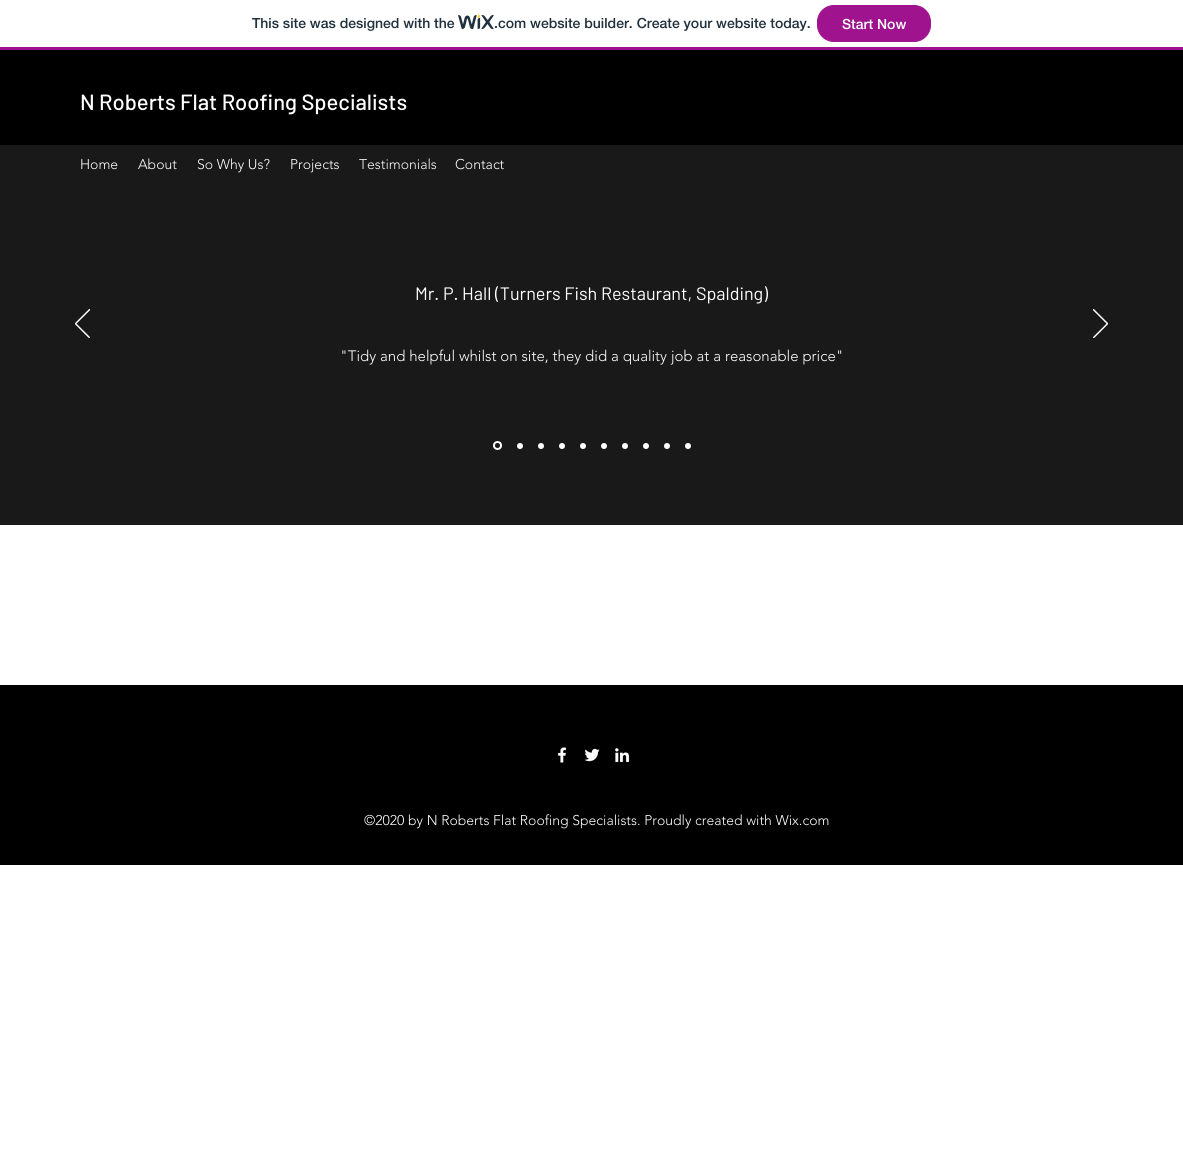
import math
import cairo

surface = cairo.ImageSurface(cairo.FORMAT_RGB24, 1183, 1158)
ctx = cairo.Context(surface)
options = cairo.FontOptions()
options.set_hint_metrics(cairo.HINT_METRICS_OFF)
options.set_hint_style(cairo.HINT_STYLE_NONE)
ctx.set_font_options(options)
ctx.set_miter_limit(4)


def round_rect(x, y, w, h, r):
    ctx.new_sub_path()
    for i, (u, v) in enumerate([(x + w - r, y + h - r), (x + r, y + h - r), (x + r, y + r), (x + w - r, y + r)]):
        ctx.arc(u, v, r, i * math.pi / 2, (i + 1) * math.pi / 2)
    ctx.close_path()


def picture(path, x, y, w, h):
    ctx.save()
    ctx.set_source_surface(cairo.ImageSurface.create_from_png(path), x, y)
    ctx.rectangle(x, y, w, h)
    ctx.fill()
    ctx.restore()


ctx.set_source_rgb(1, 1, 1)
ctx.paint()
ctx.set_source_rgb(0.627, 0.075, 0.557)
ctx.rectangle(0, 47, 1183, 3)
ctx.fill()
ctx.select_font_face("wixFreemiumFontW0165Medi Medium")
ctx.set_font_size(14)
ctx.set_source_rgb(0.125, 0.188, 0.235)
ctx.move_to(252, 28)
ctx.show_text("This site was designed with the")
picture("img1.png", 458, 15, 36, 15)
ctx.move_to(494, 28)
ctx.show_text(".com website builder. Create your website today.")
ctx.set_source_rgb(0.627, 0.075, 0.557)
round_rect(817.5, 5.5, 113, 36, 16.5)
ctx.fill_preserve()
ctx.set_line_width(1)
ctx.stroke()
ctx.set_source_rgb(1, 1, 1)
ctx.move_to(842, 29)
ctx.show_text("Start Now")
ctx.set_source_rgb(0, 0, 0)
ctx.rectangle(0, 50, 1183, 95)
ctx.fill()
ctx.select_font_face("Barlow Medium")
ctx.set_font_size(22)
ctx.set_source_rgb(1, 1, 1)
ctx.move_to(80, 110)
ctx.show_text("N Roberts Flat Roofing Specialists")
ctx.set_source_rgb(0.098, 0.098, 0.098)
ctx.rectangle(0, 145, 1183, 380)
ctx.fill()
ctx.select_font_face("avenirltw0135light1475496 Light")
ctx.set_font_size(14)
ctx.set_source_rgb(1, 1, 1)
ctx.move_to(80, 169)
ctx.show_text("Home")
ctx.move_to(138, 169)
ctx.show_text("About")
ctx.move_to(197, 169)
ctx.show_text("So Why Us?")
ctx.move_to(290, 169)
ctx.show_text("Projects")
ctx.set_source_rgb(0.969, 0.969, 0.969)
ctx.move_to(359, 169)
ctx.show_text("Testimonials")
ctx.set_source_rgb(1, 1, 1)
ctx.move_to(455, 169)
ctx.show_text("Contact")
picture("img2.png", 75, 309, 15, 29)
ctx.select_font_face("Barlow")
ctx.set_font_size(18)
ctx.move_to(415, 300)
ctx.show_text("Mr. P. Hall (Turners Fish Restaurant, Spalding)")
ctx.select_font_face("avenirltw0135light1475496 Light")
ctx.set_font_size(15)
ctx.move_to(340, 361)
ctx.show_text("\"Tidy and helpful whilst on site, they did a quality job at a reasonable price\"")
picture("img3.png", 1093, 309, 15, 29)
ctx.arc(497.5, 445.5, 3.5, 0, 2 * math.pi)
ctx.set_line_width(2)
ctx.stroke()
ctx.arc(520, 446, 3, 0, 2 * math.pi)
ctx.fill()
ctx.arc(541, 446, 3, 0, 2 * math.pi)
ctx.fill()
ctx.arc(562, 446, 3, 0, 2 * math.pi)
ctx.fill()
ctx.arc(583, 446, 3, 0, 2 * math.pi)
ctx.fill()
ctx.arc(604, 446, 3, 0, 2 * math.pi)
ctx.fill()
ctx.arc(625, 446, 3, 0, 2 * math.pi)
ctx.fill()
ctx.arc(646, 446, 3, 0, 2 * math.pi)
ctx.fill()
ctx.arc(667, 446, 3, 0, 2 * math.pi)
ctx.fill()
ctx.arc(688, 446, 3, 0, 2 * math.pi)
ctx.fill()
ctx.set_source_rgb(0, 0, 0)
ctx.rectangle(0, 685, 1183, 180)
ctx.fill()
picture("img4.png", 558, 747, 9, 16)
picture("img5.png", 584, 748, 16, 14)
picture("img6.png", 615, 748, 15, 15)
ctx.set_font_size(14)
ctx.set_source_rgb(1, 1, 1)
ctx.move_to(364, 825)
ctx.show_text("©2020 by N Roberts Flat Roofing Specialists. Proudly created with Wix.com")
surface.write_to_png("page.png")
